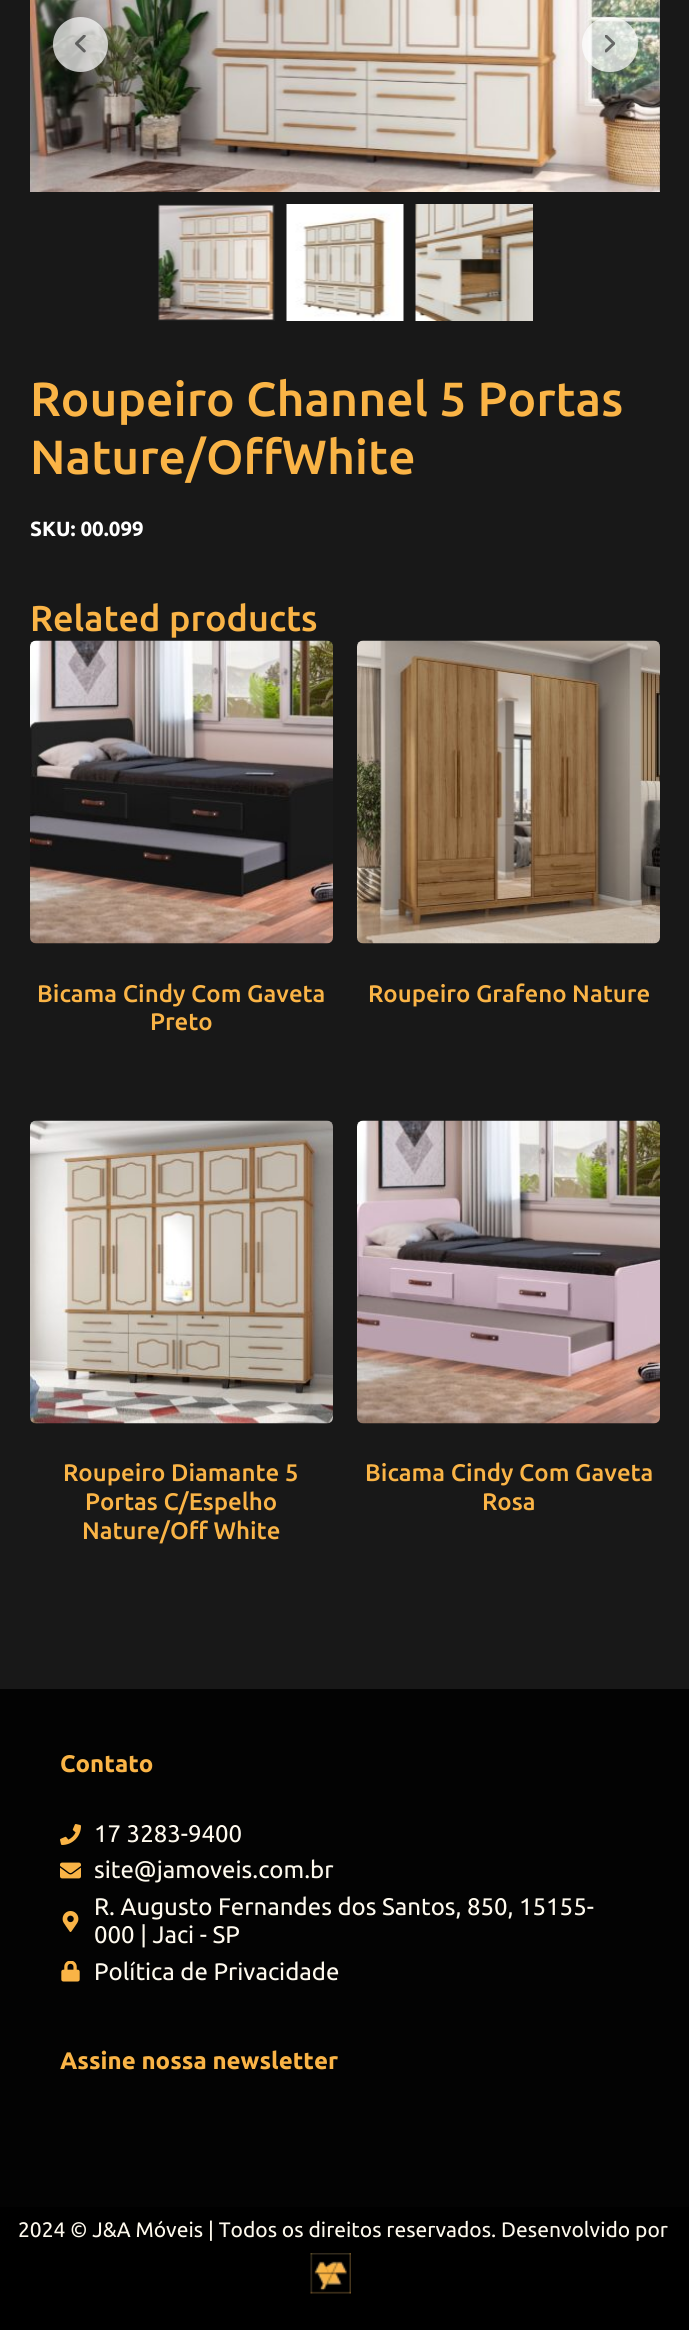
import math
import cairo

surface = cairo.ImageSurface(cairo.FORMAT_RGB24, 689, 2330)
ctx = cairo.Context(surface)
options = cairo.FontOptions()
options.set_hint_metrics(cairo.HINT_METRICS_OFF)
options.set_hint_style(cairo.HINT_STYLE_NONE)
ctx.set_font_options(options)
ctx.set_miter_limit(4)


def round_rect(x, y, w, h, r):
    ctx.new_sub_path()
    for i, (u, v) in enumerate([(x + w - r, y + h - r), (x + r, y + h - r), (x + r, y + r), (x + w - r, y + r)]):
        ctx.arc(u, v, r, i * math.pi / 2, (i + 1) * math.pi / 2)
    ctx.close_path()


def picture(path, x, y, w, h):
    ctx.save()
    ctx.set_source_surface(cairo.ImageSurface.create_from_png(path), x, y)
    ctx.rectangle(x, y, w, h)
    ctx.fill()
    ctx.restore()


ctx.set_source_rgb(0.012, 0.012, 0.012)
ctx.paint()
ctx.set_source_rgb(0.094, 0.094, 0.094)
ctx.rectangle(0, 0, 689, 1689)
ctx.fill()
picture("img1.png", 30, 0, 630, 192)
ctx.set_source_rgba(1, 1, 1, 0.7)
ctx.arc(80.5, 44.5, 27.5, 0, 2 * math.pi)
ctx.fill()
picture("img2.png", 75, 35, 11, 18)
round_rect(582, 17, 56, 55, 27.5)
ctx.fill()
picture("img3.png", 605, 35, 10, 18)
ctx.rectangle(159, 205, 115, 115)
ctx.set_source_rgb(0.133, 0.133, 0.133)
ctx.stroke()
picture("img4.png", 158, 205, 116, 115)
picture("img5.png", 286, 204, 118, 117)
picture("img6.png", 415, 204, 118, 117)
ctx.select_font_face("Ubuntu Medium")
ctx.set_font_size(48)
ctx.set_source_rgb(0.98, 0.706, 0.275)
ctx.move_to(30, 416)
ctx.show_text("Roupeiro Channel 5 Portas")
ctx.move_to(30, 474)
ctx.show_text("Nature/OffWhite")
ctx.select_font_face("Ubuntu", cairo.FONT_SLANT_NORMAL, cairo.FONT_WEIGHT_BOLD)
ctx.set_font_size(20.5)
ctx.set_source_rgb(1, 1, 1)
ctx.move_to(30, 536)
ctx.show_text("SKU: 00.099")
ctx.select_font_face("Ubuntu Medium")
ctx.set_font_size(36)
ctx.set_source_rgb(0.98, 0.706, 0.275)
ctx.move_to(30, 631)
ctx.show_text("Related products")
picture("img7.png", 30, 640, 303, 304)
ctx.set_font_size(24)
ctx.move_to(37, 1002)
ctx.show_text("Bicama Cindy Com Gaveta")
ctx.move_to(150, 1030)
ctx.show_text("Preto")
picture("img8.png", 357, 640, 303, 304)
ctx.move_to(368, 1002)
ctx.show_text("Roupeiro Grafeno Nature")
picture("img9.png", 30, 1120, 303, 304)
ctx.move_to(63, 1481)
ctx.show_text("Roupeiro Diamante 5")
ctx.move_to(85, 1510)
ctx.show_text("Portas C/Espelho")
ctx.move_to(82, 1539)
ctx.show_text("Nature/Off White")
picture("img10.png", 357, 1120, 303, 304)
ctx.move_to(365, 1481)
ctx.show_text("Bicama Cindy Com Gaveta")
ctx.move_to(482, 1510)
ctx.show_text("Rosa")
ctx.select_font_face("Ubuntu", cairo.FONT_SLANT_NORMAL, cairo.FONT_WEIGHT_BOLD)
ctx.move_to(60, 1772)
ctx.show_text("Contato")
picture("img11.png", 60, 1824, 21, 21)
ctx.select_font_face("Ubuntu")
ctx.set_source_rgb(1, 0.98, 0.933)
ctx.move_to(94, 1842)
ctx.show_text("17 3283-9400")
picture("img12.png", 60, 1862, 21, 17)
ctx.move_to(94, 1878)
ctx.show_text("site@jamoveis.com.br")
picture("img13.png", 62, 1911, 17, 21)
ctx.move_to(94, 1915)
ctx.show_text("R. Augusto Fernandes dos Santos, 850, 15155-")
ctx.move_to(94, 1943)
ctx.show_text("000 | Jaci - SP")
picture("img14.png", 61, 1961, 19, 21)
ctx.move_to(94, 1980)
ctx.show_text("Política de Privacidade")
ctx.select_font_face("Ubuntu", cairo.FONT_SLANT_NORMAL, cairo.FONT_WEIGHT_BOLD)
ctx.set_source_rgb(0.98, 0.706, 0.275)
ctx.move_to(60, 2069)
ctx.show_text("Assine nossa newsletter")
ctx.set_source_rgb(0, 0, 0)
ctx.rectangle(0, 2207, 689, 123)
ctx.fill()
ctx.select_font_face("Ubuntu")
ctx.set_font_size(21)
ctx.set_source_rgb(1, 0.98, 0.933)
ctx.move_to(18, 2237)
ctx.show_text("2024 © J&A Móveis | Todos os direitos reservados. Desenvolvido por")
picture("img15.png", 310, 2253, 41, 41)
surface.write_to_png("page.png")
